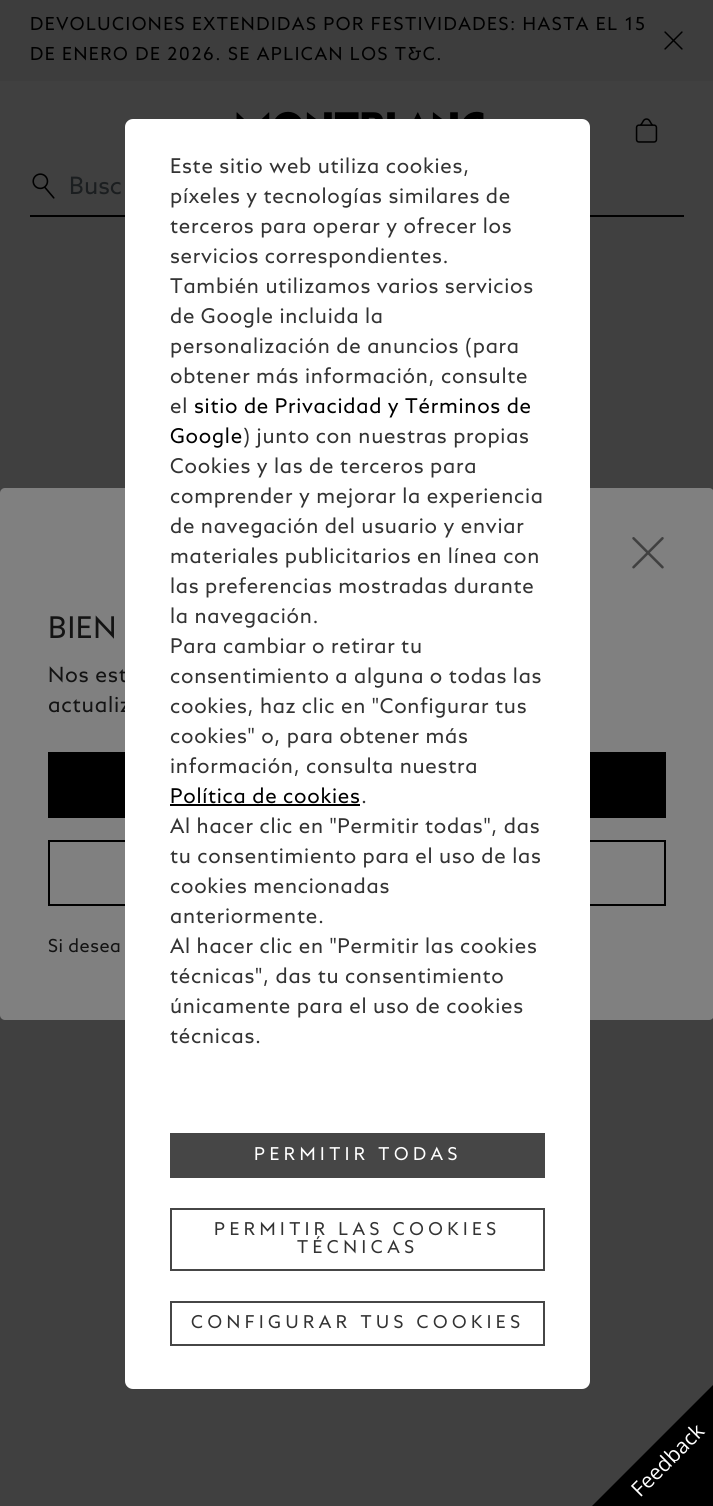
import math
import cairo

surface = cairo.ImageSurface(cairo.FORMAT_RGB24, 713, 1506)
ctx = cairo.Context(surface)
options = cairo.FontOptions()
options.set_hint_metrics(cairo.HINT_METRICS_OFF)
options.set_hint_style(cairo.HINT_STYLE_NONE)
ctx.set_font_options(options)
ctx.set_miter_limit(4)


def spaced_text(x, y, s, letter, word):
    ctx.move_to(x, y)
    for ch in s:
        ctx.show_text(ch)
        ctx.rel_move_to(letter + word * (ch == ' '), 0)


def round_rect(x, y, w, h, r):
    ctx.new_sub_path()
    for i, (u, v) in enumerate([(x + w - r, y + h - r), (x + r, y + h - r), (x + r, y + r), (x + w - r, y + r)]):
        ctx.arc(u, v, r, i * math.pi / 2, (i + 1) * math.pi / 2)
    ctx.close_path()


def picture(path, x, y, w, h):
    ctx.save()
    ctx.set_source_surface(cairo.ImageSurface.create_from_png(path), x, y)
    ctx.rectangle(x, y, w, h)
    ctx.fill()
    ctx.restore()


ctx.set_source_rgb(0.251, 0.251, 0.251)
ctx.paint()
ctx.set_source_rgb(0.239, 0.239, 0.239)
ctx.rectangle(0, 0, 713, 81)
ctx.fill()
ctx.select_font_face("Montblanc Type")
ctx.set_font_size(18)
ctx.set_source_rgb(0, 0, 0)
spaced_text(30, 30, "DEVOLUCIONES EXTENDIDAS POR FESTIVIDADES: HASTA EL 15", 1.5, 0)
spaced_text(30, 60, "DE ENERO DE 2026. SE APLICAN LOS T&C.", 1.5, 0)
picture("img1.png", 664, 31, 19, 19)
picture("img2.png", 236, 111, 248, 8)
picture("img3.png", 635, 118, 23, 25)
picture("img4.png", 32, 173, 23, 26)
ctx.rectangle(30, 215, 654, 2)
ctx.fill()
ctx.set_font_size(24)
ctx.set_source_rgb(0.106, 0.118, 0.125)
ctx.move_to(69, 194)
ctx.show_text("Busc")
ctx.set_source_rgb(0.502, 0.502, 0.502)
round_rect(0, 488, 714, 532, 5)
ctx.fill()
picture("img5.png", 632, 537, 32, 32)
ctx.set_font_size(30)
ctx.set_source_rgb(0.078, 0.078, 0.078)
spaced_text(48, 638, "BIEN", 0.75, 0)
ctx.set_font_size(21)
spaced_text(48, 682, "Nos est", 0.75, 0)
spaced_text(48, 712, "actualiz", 0.75, 0)
ctx.set_source_rgb(0, 0, 0)
ctx.rectangle(48, 752, 618, 66)
ctx.fill()
ctx.rectangle(49, 841, 616, 64)
ctx.stroke()
ctx.set_font_size(18)
ctx.set_source_rgb(0.078, 0.078, 0.078)
spaced_text(48, 952, "Si desea", 0.5, 0)
ctx.set_source_rgb(1, 1, 1)
round_rect(125, 119, 465, 1270, 8)
ctx.fill()
ctx.set_font_size(20.4)
ctx.set_source_rgb(0.2, 0.2, 0.2)
spaced_text(170, 173, "Este sitio web utiliza cookies,", 0.75, 0)
spaced_text(170, 203, "píxeles y tecnologías similares de", 0.75, 0)
spaced_text(170, 233, "terceros para operar y ofrecer los", 0.75, 0)
spaced_text(170, 263, "servicios correspondientes.", 0.75, 0)
spaced_text(170, 293, "También utilizamos varios servicios", 0.75, 0)
spaced_text(170, 323, "de Google incluida la", 0.75, 0)
spaced_text(170, 353, "personalización de anuncios (para", 0.75, 0)
spaced_text(170, 383, "obtener más información, consulte", 0.75, 0)
spaced_text(170, 413, "el", 0.75, 0)
ctx.set_source_rgb(0, 0, 0)
spaced_text(194, 413, "sitio de Privacidad y Términos de", 0.75, 0)
spaced_text(170, 443, "Google", 0.75, 0)
ctx.set_source_rgb(0.2, 0.2, 0.2)
spaced_text(243, 443, ") junto con nuestras propias", 0.75, 0)
spaced_text(170, 473, "Cookies y las de terceros para", 0.75, 0)
spaced_text(170, 503, "comprender y mejorar la experiencia", 0.75, 0)
spaced_text(170, 533, "de navegación del usuario y enviar", 0.75, 0)
spaced_text(170, 563, "materiales publicitarios en línea con", 0.75, 0)
spaced_text(170, 593, "las preferencias mostradas durante", 0.75, 0)
spaced_text(170, 623, "la navegación.", 0.75, 0)
spaced_text(170, 653, "Para cambiar o retirar tu", 0.75, 0)
spaced_text(170, 683, "consentimiento a alguna o todas las", 0.75, 0)
spaced_text(170, 713, "cookies, haz clic en \"Configurar tus", 0.75, 0)
spaced_text(170, 743, "cookies\" o, para obtener más", 0.75, 0)
spaced_text(170, 773, "información, consulta nuestra", 0.75, 0)
ctx.set_source_rgb(0, 0, 0)
spaced_text(170, 803, "Política de cookies", 0.75, 0)
ctx.rectangle(170, 804, 190, 2)
ctx.fill()
ctx.set_source_rgb(0.2, 0.2, 0.2)
spaced_text(361, 803, ".", 0.75, 0)
spaced_text(170, 833, "Al hacer clic en \"Permitir todas\", das", 0.75, 0)
spaced_text(170, 863, "tu consentimiento para el uso de las", 0.75, 0)
spaced_text(170, 893, "cookies mencionadas", 0.75, 0)
spaced_text(170, 923, "anteriormente.", 0.75, 0)
spaced_text(170, 953, "Al hacer clic en \"Permitir las cookies", 0.75, 0)
spaced_text(170, 983, "técnicas\", das tu consentimiento", 0.75, 0)
spaced_text(170, 1013, "únicamente para el uso de cookies", 0.75, 0)
spaced_text(170, 1043, "técnicas.", 0.75, 0)
ctx.set_source_rgb(0.275, 0.275, 0.275)
ctx.rectangle(170, 1133, 375, 45)
ctx.fill()
ctx.set_font_size(17.8)
ctx.set_source_rgb(1, 1, 1)
spaced_text(254, 1160, "PERMITIR TODAS", 4.5, 0)
ctx.rectangle(171, 1209, 373, 61)
ctx.set_source_rgb(0.275, 0.275, 0.275)
ctx.stroke()
ctx.set_source_rgb(0.2, 0.2, 0.2)
spaced_text(214, 1235, "PERMITIR LAS COOKIES", 4.5, 0)
spaced_text(297, 1253, "TÉCNICAS", 4.5, 0)
ctx.rectangle(171, 1302, 373, 43)
ctx.set_source_rgb(0.275, 0.275, 0.275)
ctx.stroke()
ctx.set_source_rgb(0.2, 0.2, 0.2)
spaced_text(191, 1328, "CONFIGURAR TUS COOKIES", 4.5, 0)
ctx.set_source_rgb(0, 0, 0)
ctx.new_path()
ctx.move_to(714, 1506)
ctx.line_to(592, 1506)
ctx.line_to(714, 1384)
ctx.close_path()
ctx.fill()
ctx.select_font_face("Open Sans")
ctx.set_font_size(21)
ctx.set_source_rgb(1, 1, 1)
ctx.save()
ctx.translate(640, 1498)
ctx.rotate(-45 * math.pi / 180)
ctx.move_to(0, 0)
ctx.show_text("Feedback")
ctx.restore()
surface.write_to_png("page.png")
